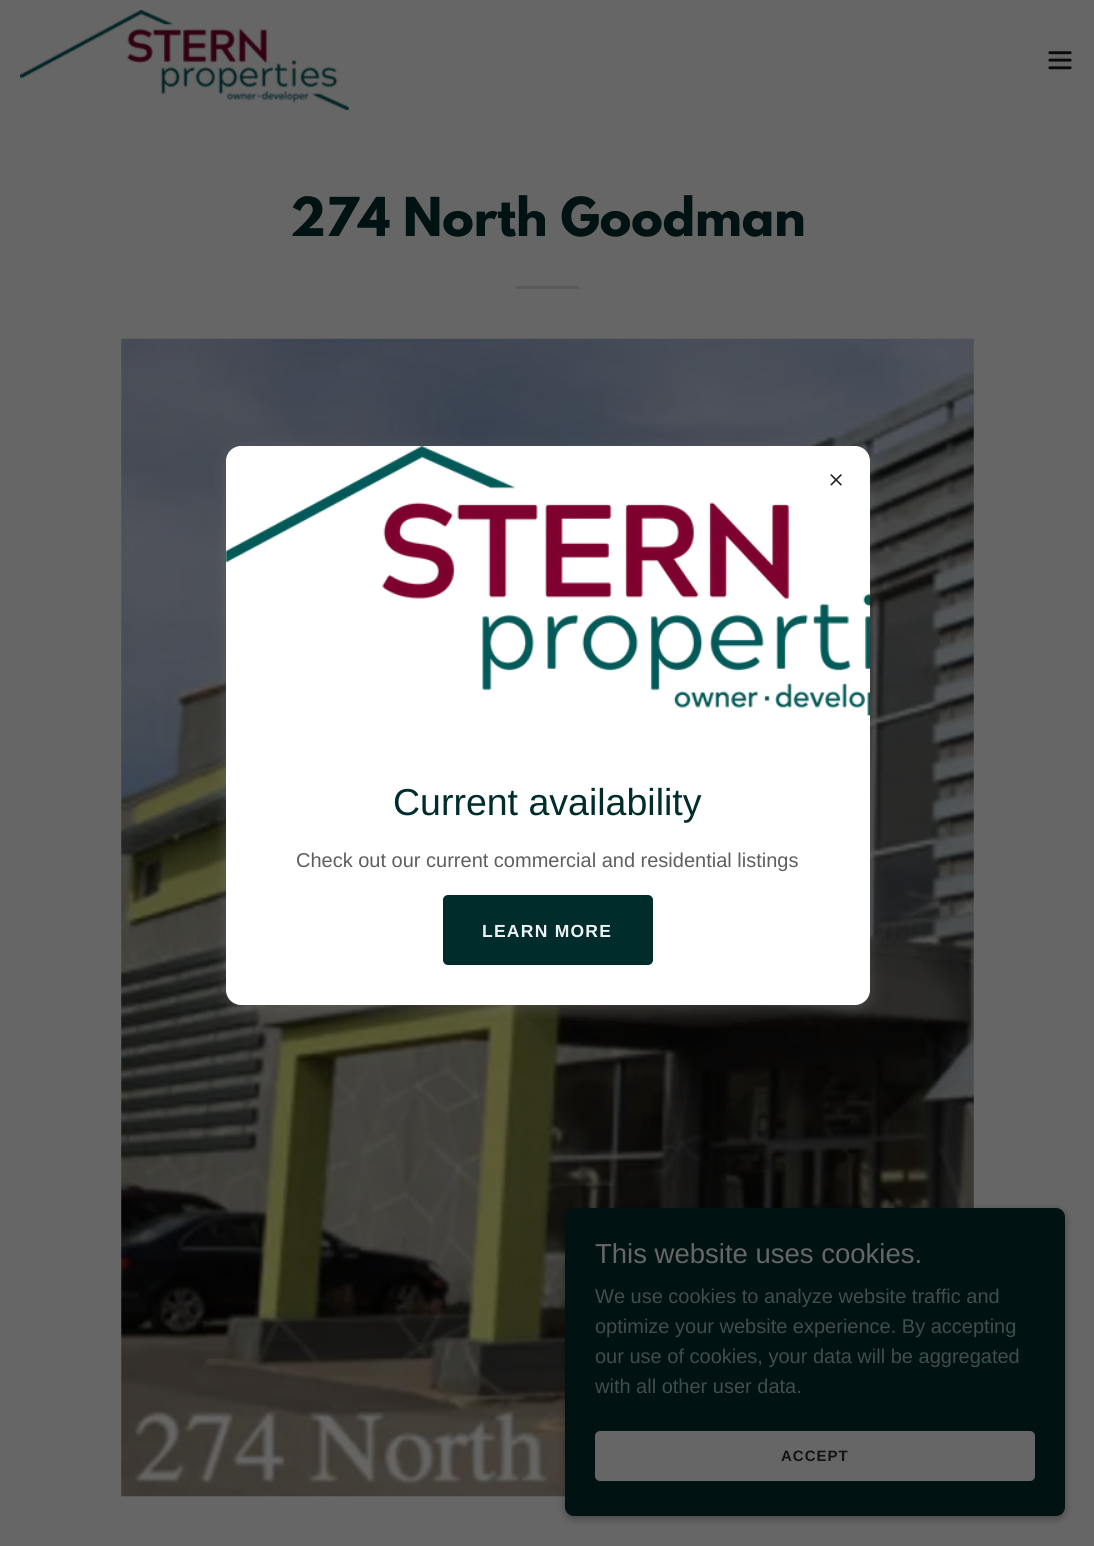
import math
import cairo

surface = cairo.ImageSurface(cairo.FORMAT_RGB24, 1094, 1546)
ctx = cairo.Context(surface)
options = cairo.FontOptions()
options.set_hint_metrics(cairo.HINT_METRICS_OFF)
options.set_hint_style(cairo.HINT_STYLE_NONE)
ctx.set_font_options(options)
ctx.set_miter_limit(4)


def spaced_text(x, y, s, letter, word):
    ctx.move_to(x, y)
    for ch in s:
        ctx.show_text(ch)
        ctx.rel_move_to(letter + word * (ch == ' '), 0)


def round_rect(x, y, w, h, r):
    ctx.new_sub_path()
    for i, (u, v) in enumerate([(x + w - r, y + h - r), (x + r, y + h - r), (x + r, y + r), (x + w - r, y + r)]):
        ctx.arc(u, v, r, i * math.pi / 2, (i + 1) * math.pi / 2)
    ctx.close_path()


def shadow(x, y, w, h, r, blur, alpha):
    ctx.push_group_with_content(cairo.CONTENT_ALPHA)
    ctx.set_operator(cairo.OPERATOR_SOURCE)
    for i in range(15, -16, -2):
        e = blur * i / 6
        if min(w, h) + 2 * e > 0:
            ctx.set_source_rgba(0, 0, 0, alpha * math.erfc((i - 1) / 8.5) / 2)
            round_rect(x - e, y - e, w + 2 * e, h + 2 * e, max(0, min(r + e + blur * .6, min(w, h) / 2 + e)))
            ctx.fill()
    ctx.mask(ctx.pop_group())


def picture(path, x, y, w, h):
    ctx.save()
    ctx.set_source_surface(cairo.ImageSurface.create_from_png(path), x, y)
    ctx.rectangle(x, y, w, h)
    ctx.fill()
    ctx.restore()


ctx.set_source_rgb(0.4, 0.4, 0.4)
ctx.paint()
picture("img1.png", 20, 10, 329, 100)
picture("img2.png", 1048, 51, 24, 19)
ctx.select_font_face("League Spartan", cairo.FONT_SLANT_NORMAL, cairo.FONT_WEIGHT_BOLD)
ctx.set_font_size(47.5)
ctx.set_source_rgb(0, 0.071, 0.071)
ctx.move_to(290, 236)
ctx.show_text("274 North Goodman")
ctx.set_source_rgb(0.353, 0.353, 0.353)
ctx.rectangle(516, 286, 63, 3)
ctx.fill()
picture("img3.png", 121, 338, 853, 1159)
ctx.set_source_rgb(0.459, 0.459, 0.459)
shadow(226, 451, 644, 559, 15, 7.5, 0.4)
ctx.set_source_rgb(1, 1, 1)
round_rect(226, 446, 644, 559, 15)
ctx.fill()
picture("img5.png", 226, 446, 644, 271)
picture("img4.png", 830, 474, 12, 12)
ctx.select_font_face("Liberation Sans")
ctx.set_font_size(37.5)
ctx.set_source_rgb(0, 0.173, 0.173)
ctx.move_to(393, 815)
ctx.show_text("Current availability")
ctx.set_font_size(20)
ctx.set_source_rgb(0.369, 0.369, 0.369)
ctx.move_to(296, 867)
ctx.show_text("Check out our current commercial and residential listings")
ctx.set_source_rgb(0, 0.173, 0.173)
round_rect(443, 895, 210, 70, 5)
ctx.fill()
ctx.select_font_face("Liberation Sans", cairo.FONT_SLANT_NORMAL, cairo.FONT_WEIGHT_BOLD)
ctx.set_font_size(17.5)
ctx.set_source_rgb(0.937, 0.949, 0.949)
spaced_text(482, 937, "LEARN MORE", 1.25, 0)
ctx.set_source_rgb(0, 0, 0)
shadow(565, 1210, 500, 309, 9, 4, 0.3)
ctx.set_source_rgb(0, 0.071, 0.071)
round_rect(565, 1208, 500, 308, 9)
ctx.fill()
ctx.select_font_face("Liberation Sans")
ctx.set_font_size(27.5)
ctx.set_source_rgb(0.4, 0.4, 0.4)
ctx.move_to(595, 1263)
ctx.show_text("This website uses cookies.")
ctx.set_font_size(20)
ctx.set_source_rgb(0.251, 0.302, 0.302)
ctx.move_to(595, 1303)
ctx.show_text("We use cookies to analyze website traffic and")
ctx.move_to(595, 1333)
ctx.show_text("optimize your website experience. By accepting")
ctx.move_to(595, 1363)
ctx.show_text("our use of cookies, your data will be aggregated")
ctx.move_to(595, 1393)
ctx.show_text("with all other user data.")
ctx.set_source_rgb(0.4, 0.4, 0.4)
round_rect(595, 1431, 440, 50, 5)
ctx.fill()
ctx.select_font_face("Liberation Sans", cairo.FONT_SLANT_NORMAL, cairo.FONT_WEIGHT_BOLD)
ctx.set_font_size(15)
ctx.set_source_rgb(0.075, 0.075, 0.075)
spaced_text(781, 1461, "ACCEPT", 1, 0)
surface.write_to_png("page.png")
